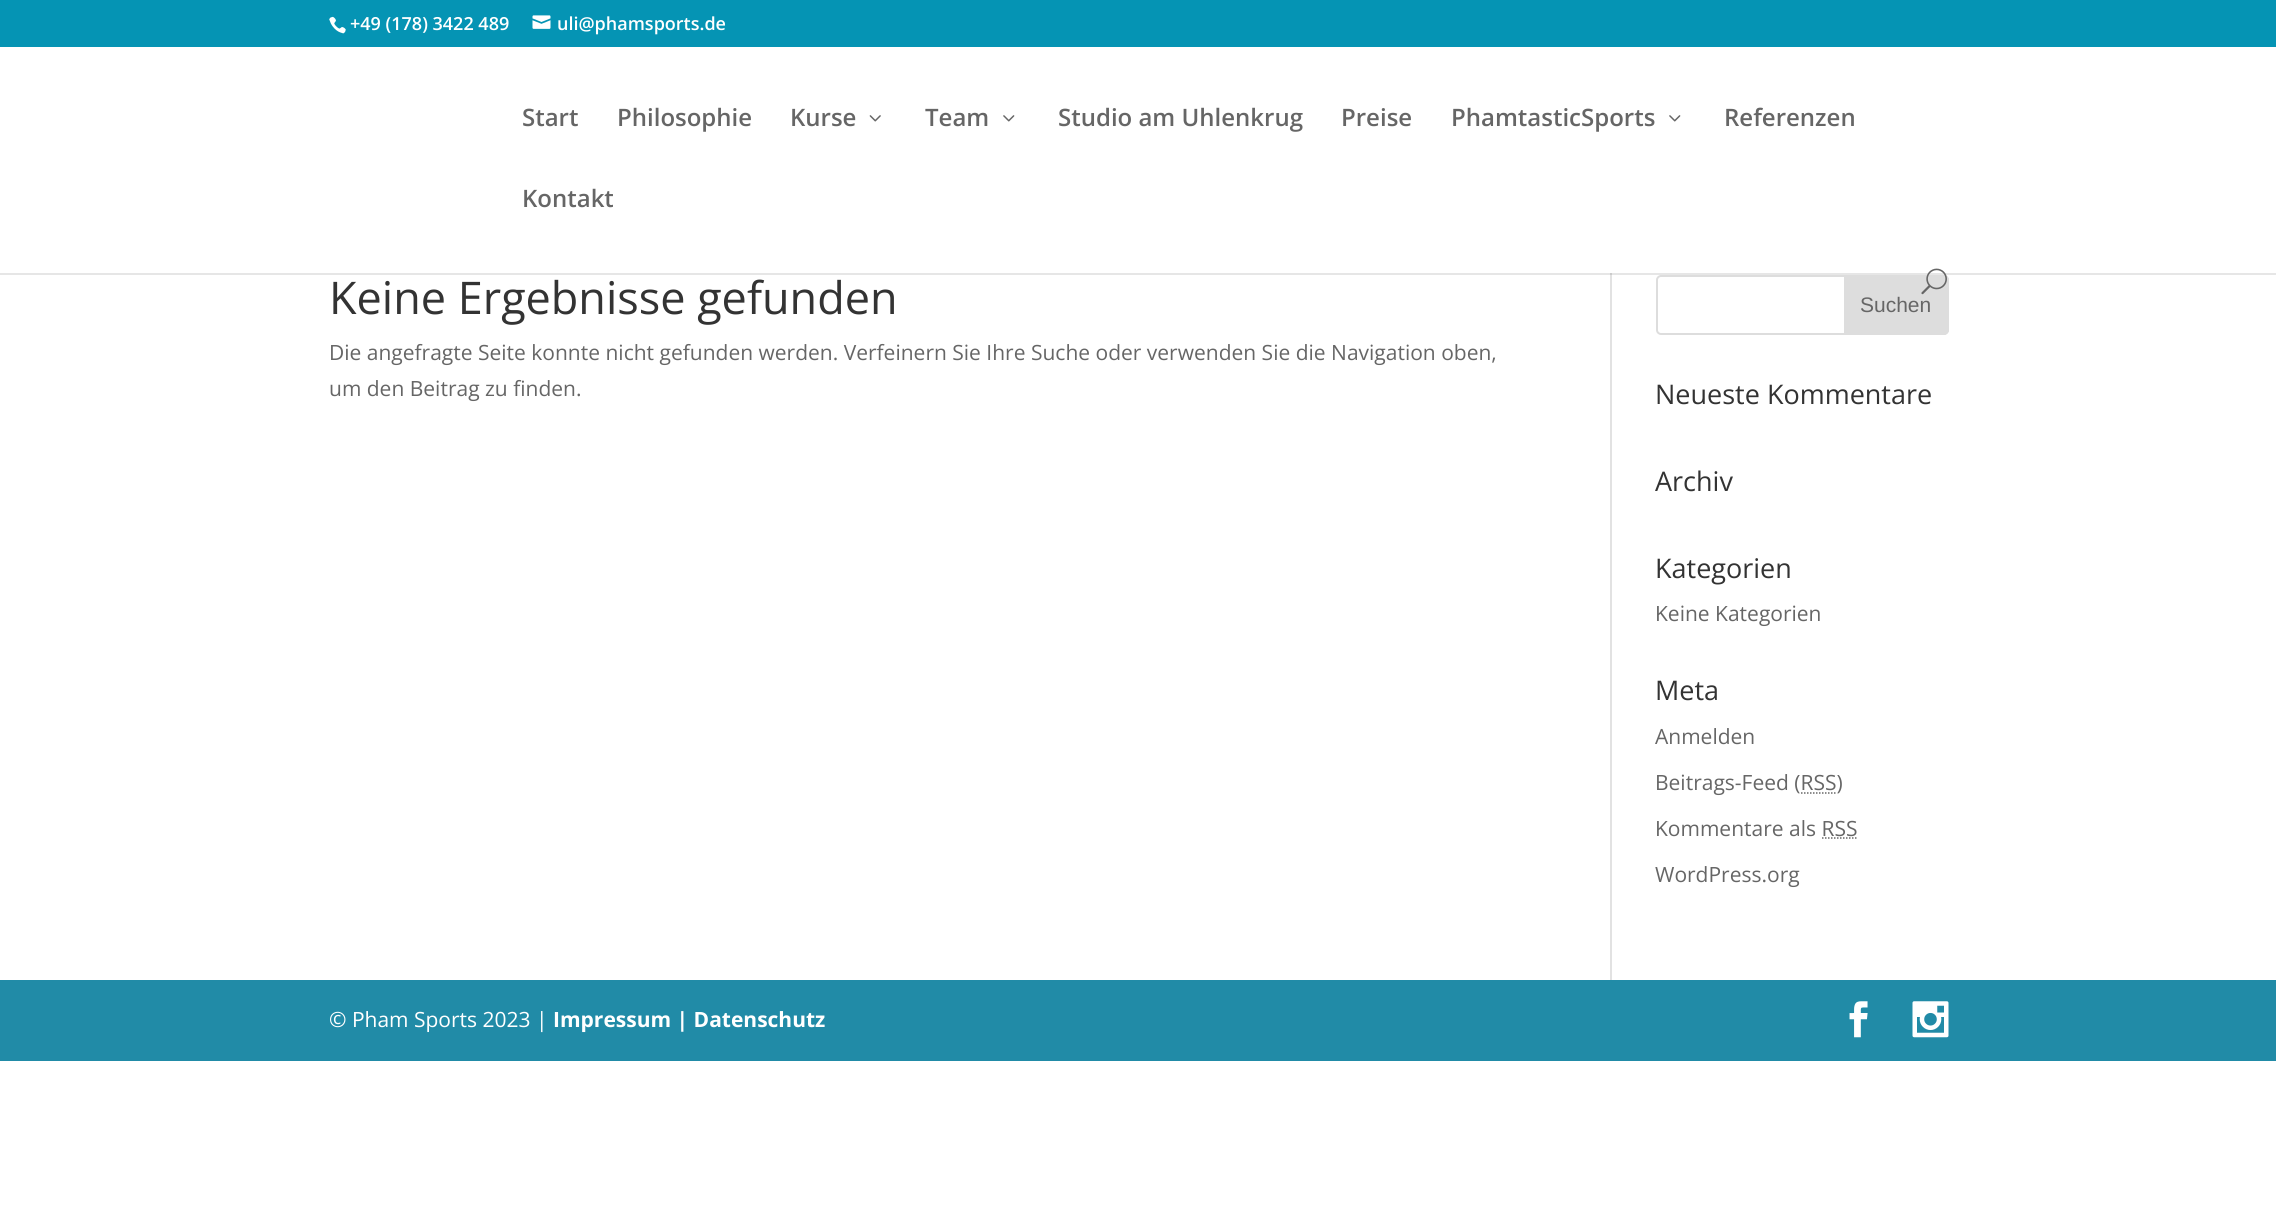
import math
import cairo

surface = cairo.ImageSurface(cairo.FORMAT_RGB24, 2276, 1231)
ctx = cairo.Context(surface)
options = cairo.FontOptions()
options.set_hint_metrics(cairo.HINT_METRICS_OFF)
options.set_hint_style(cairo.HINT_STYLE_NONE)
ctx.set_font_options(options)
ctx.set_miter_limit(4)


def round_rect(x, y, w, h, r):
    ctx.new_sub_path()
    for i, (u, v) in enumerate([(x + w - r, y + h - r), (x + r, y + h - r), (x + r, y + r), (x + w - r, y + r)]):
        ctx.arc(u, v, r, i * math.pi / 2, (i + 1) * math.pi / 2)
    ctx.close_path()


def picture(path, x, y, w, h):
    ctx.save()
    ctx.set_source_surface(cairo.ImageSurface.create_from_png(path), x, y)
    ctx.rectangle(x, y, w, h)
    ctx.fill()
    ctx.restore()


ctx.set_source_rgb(1, 1, 1)
ctx.paint()
ctx.set_source_rgb(0.902, 0.902, 0.902)
ctx.rectangle(0, 273, 2276, 2)
ctx.fill()
ctx.set_source_rgb(0.02, 0.58, 0.706)
ctx.rectangle(0, 0, 2276, 47)
ctx.fill()
picture("img1.png", 329, 16, 17, 18)
ctx.select_font_face("Open Sans SemiBold")
ctx.set_font_size(18)
ctx.set_source_rgb(1, 1, 1)
ctx.move_to(350, 30)
ctx.show_text("+49 (178) 3422 489")
picture("img2.png", 532, 15, 19, 14)
ctx.move_to(557, 30)
ctx.show_text("uli@phamsports.de")
ctx.set_font_size(24)
ctx.set_source_rgb(0.4, 0.4, 0.4)
ctx.move_to(522, 126)
ctx.show_text("Start")
ctx.move_to(617, 126)
ctx.show_text("Philosophie")
ctx.move_to(790, 126)
ctx.show_text("Kurse")
picture("img3.png", 869, 115, 12, 7)
ctx.move_to(925, 126)
ctx.show_text("Team")
picture("img4.png", 1003, 115, 12, 7)
ctx.move_to(1058, 126)
ctx.show_text("Studio am Uhlenkrug")
ctx.move_to(1341, 126)
ctx.show_text("Preise")
ctx.move_to(1451, 126)
ctx.show_text("PhamtasticSports")
picture("img4.png", 1669, 115, 12, 7)
ctx.move_to(1724, 126)
ctx.show_text("Referenzen")
ctx.move_to(522, 207)
ctx.show_text("Kontakt")
round_rect(1657, 276, 291, 58, 4)
ctx.set_source_rgb(0.867, 0.867, 0.867)
ctx.stroke()
ctx.new_path()
ctx.move_to(1845, 276)
ctx.line_to(1944, 276)
ctx.curve_to(1946, 276, 1948, 278, 1948, 280)
ctx.line_to(1948, 330)
ctx.curve_to(1948, 332, 1946, 334, 1944, 334)
ctx.line_to(1845, 334)
ctx.close_path()
ctx.fill_preserve()
ctx.stroke()
picture("img5.png", 1921, 268, 26, 27)
ctx.set_source_rgb(0.886, 0.886, 0.886)
ctx.rectangle(1610, 275, 2, 705)
ctx.fill()
ctx.set_source_rgb(0.796, 0.796, 0.796)
ctx.rectangle(1610, 273, 2, 2)
ctx.fill()
ctx.select_font_face("Open Sans")
ctx.set_font_size(45)
ctx.set_source_rgb(0.2, 0.2, 0.2)
ctx.move_to(329, 314)
ctx.show_text("Keine Ergebnisse gefunden")
ctx.set_font_size(21)
ctx.set_source_rgb(0.4, 0.4, 0.4)
ctx.move_to(329, 360)
ctx.show_text("Die angefragte Seite konnte nicht gefunden werden. Verfeinern Sie Ihre Suche oder verwenden Sie die Navigation oben,")
ctx.move_to(329, 396)
ctx.show_text("um den Beitrag zu finden.")
ctx.select_font_face("Liberation Sans")
ctx.move_to(1860, 312)
ctx.show_text("Suchen")
ctx.select_font_face("Open Sans")
ctx.set_font_size(27)
ctx.set_source_rgb(0.2, 0.2, 0.2)
ctx.move_to(1655, 404)
ctx.show_text("Neueste Kommentare")
ctx.move_to(1655, 491)
ctx.show_text("Archiv")
ctx.move_to(1655, 578)
ctx.show_text("Kategorien")
ctx.set_font_size(21)
ctx.set_source_rgb(0.4, 0.4, 0.4)
ctx.move_to(1655, 621)
ctx.show_text("Keine Kategorien")
ctx.set_font_size(27)
ctx.set_source_rgb(0.2, 0.2, 0.2)
ctx.move_to(1655, 700)
ctx.show_text("Meta")
ctx.set_font_size(21)
ctx.set_source_rgb(0.4, 0.4, 0.4)
ctx.move_to(1655, 744)
ctx.show_text("Anmelden")
ctx.move_to(1655, 790)
ctx.show_text("Beitrags-Feed (RSS)")
ctx.new_path()
ctx.move_to(1801, 793)
ctx.line_to(1837, 793)
ctx.set_line_width(1.5)
ctx.set_dash([1.5, 1.5])
ctx.stroke()
ctx.move_to(1655, 836)
ctx.show_text("Kommentare als RSS")
ctx.new_path()
ctx.move_to(1822, 838)
ctx.line_to(1858, 838)
ctx.stroke()
ctx.move_to(1655, 882)
ctx.show_text("WordPress.org")
ctx.set_source_rgb(0.129, 0.545, 0.655)
ctx.rectangle(0, 980, 2276, 81)
ctx.fill()
ctx.set_source_rgb(1, 1, 1)
ctx.move_to(329, 1027)
ctx.show_text("© Pham Sports 2023 |")
ctx.select_font_face("Open Sans", cairo.FONT_SLANT_NORMAL, cairo.FONT_WEIGHT_BOLD)
ctx.move_to(553, 1027)
ctx.show_text("Impressum | Datenschutz")
picture("img6.png", 1849, 1001, 19, 37)
picture("img7.png", 1912, 1001, 37, 37)
surface.write_to_png("page.png")
